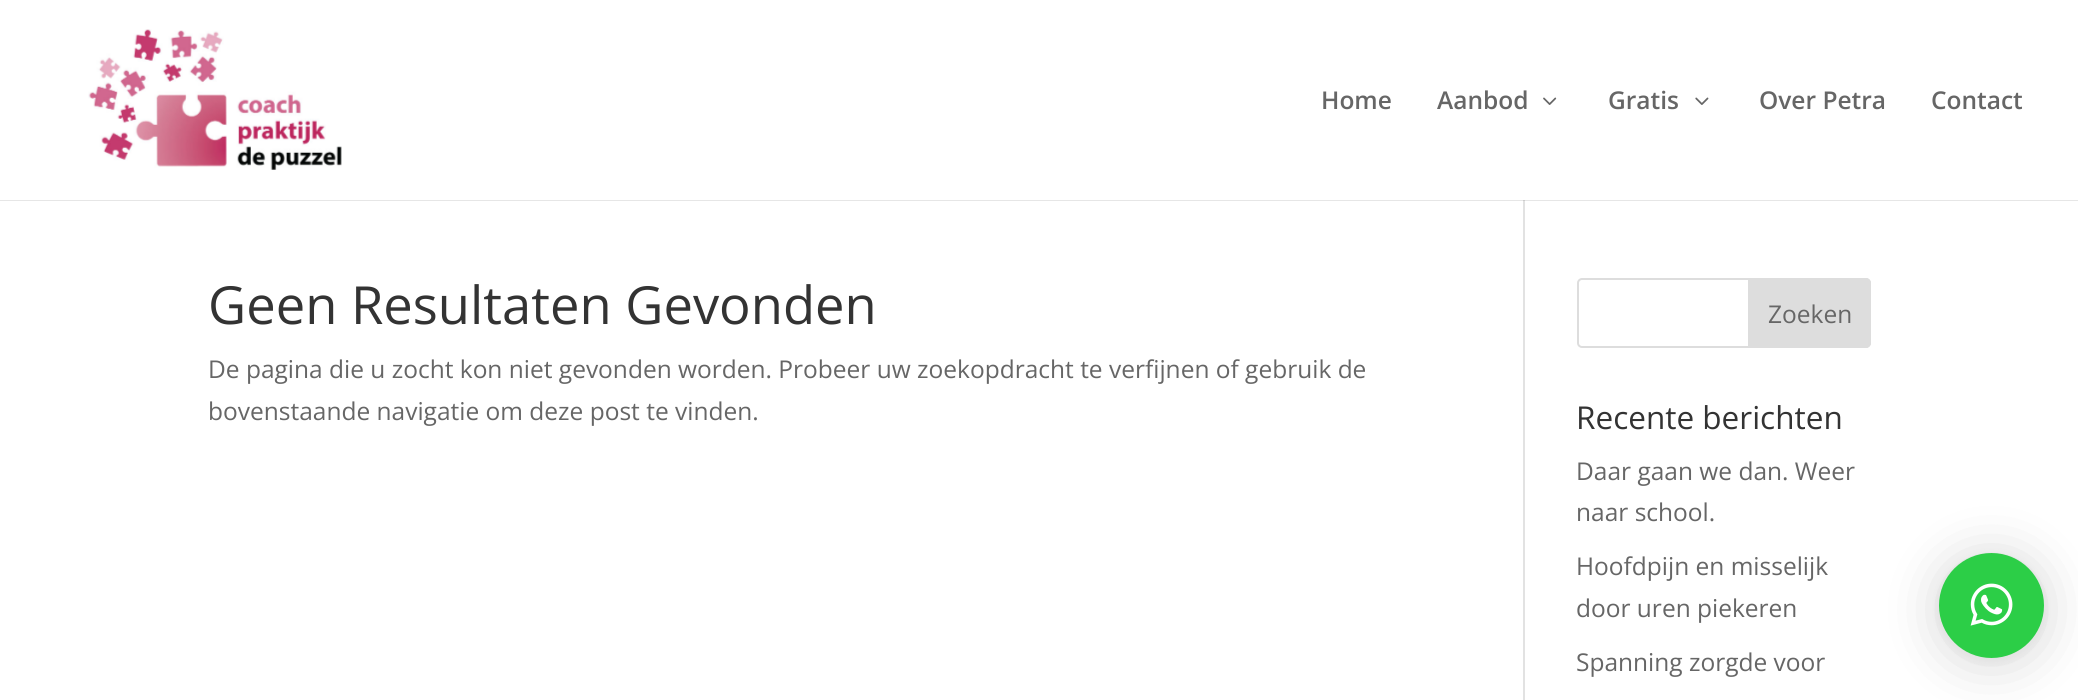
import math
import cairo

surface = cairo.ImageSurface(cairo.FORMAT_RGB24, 2078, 700)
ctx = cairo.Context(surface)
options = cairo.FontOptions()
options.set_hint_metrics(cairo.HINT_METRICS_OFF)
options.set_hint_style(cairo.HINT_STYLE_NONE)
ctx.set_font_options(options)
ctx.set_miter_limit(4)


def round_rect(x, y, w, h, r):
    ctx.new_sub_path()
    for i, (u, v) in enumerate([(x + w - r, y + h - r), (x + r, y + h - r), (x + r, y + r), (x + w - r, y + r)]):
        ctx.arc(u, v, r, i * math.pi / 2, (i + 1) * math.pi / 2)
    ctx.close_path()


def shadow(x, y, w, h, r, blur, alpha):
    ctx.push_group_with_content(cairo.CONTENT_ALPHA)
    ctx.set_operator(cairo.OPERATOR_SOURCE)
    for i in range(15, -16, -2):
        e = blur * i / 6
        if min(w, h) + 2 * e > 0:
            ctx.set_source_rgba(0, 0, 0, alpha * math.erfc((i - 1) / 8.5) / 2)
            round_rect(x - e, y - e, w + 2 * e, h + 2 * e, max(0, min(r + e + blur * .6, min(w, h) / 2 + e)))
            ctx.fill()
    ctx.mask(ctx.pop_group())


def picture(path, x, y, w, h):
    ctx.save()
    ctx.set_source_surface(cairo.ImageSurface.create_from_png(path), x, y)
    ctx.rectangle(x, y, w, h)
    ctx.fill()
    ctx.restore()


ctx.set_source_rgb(1, 1, 1)
ctx.paint()
ctx.set_source_rgb(0.902, 0.902, 0.902)
ctx.rectangle(0, 200, 2078, 1)
ctx.fill()
picture("img1.png", 88, 29, 254, 141)
ctx.select_font_face("Open Sans SemiBold")
ctx.set_font_size(24.5)
ctx.set_source_rgb(0.4, 0.4, 0.4)
ctx.move_to(1321, 109)
ctx.show_text("Home")
ctx.move_to(1437, 109)
ctx.show_text("Aanbod")
picture("img2.png", 1543, 97, 14, 8)
ctx.move_to(1608, 109)
ctx.show_text("Gratis")
picture("img3.png", 1695, 97, 14, 8)
ctx.move_to(1759, 109)
ctx.show_text("Over Petra")
ctx.move_to(1931, 109)
ctx.show_text("Contact")
ctx.set_source_rgb(0.886, 0.886, 0.886)
ctx.rectangle(1523, 201, 2, 499)
ctx.fill()
ctx.set_source_rgb(0.796, 0.796, 0.796)
ctx.rectangle(1523, 200, 2, 1)
ctx.fill()
ctx.select_font_face("Open Sans")
ctx.set_font_size(52.5)
ctx.set_source_rgb(0.2, 0.2, 0.2)
ctx.move_to(208, 324)
ctx.show_text("Geen Resultaten Gevonden")
ctx.set_font_size(24.5)
ctx.set_source_rgb(0.4, 0.4, 0.4)
ctx.move_to(208, 378)
ctx.show_text("De pagina die u zocht kon niet gevonden worden. Probeer uw zoekopdracht te verfijnen of gebruik de")
ctx.move_to(208, 420)
ctx.show_text("bovenstaande navigatie om deze post te vinden.")
round_rect(1578, 279, 292, 68, 4)
ctx.set_source_rgb(0.867, 0.867, 0.867)
ctx.stroke()
ctx.new_path()
ctx.move_to(1749, 279)
ctx.line_to(1866, 279)
ctx.curve_to(1868, 279, 1870, 281, 1870, 283)
ctx.line_to(1870, 343)
ctx.curve_to(1870, 345, 1868, 347, 1866, 347)
ctx.line_to(1749, 347)
ctx.close_path()
ctx.fill_preserve()
ctx.stroke()
ctx.set_source_rgb(0.4, 0.4, 0.4)
ctx.move_to(1768, 323)
ctx.show_text("Zoeken")
ctx.set_font_size(31.5)
ctx.set_source_rgb(0.2, 0.2, 0.2)
ctx.move_to(1576, 429)
ctx.show_text("Recente berichten")
ctx.set_font_size(24.5)
ctx.set_source_rgb(0.4, 0.4, 0.4)
ctx.move_to(1576, 480)
ctx.show_text("Daar gaan we dan. Weer")
ctx.move_to(1576, 521)
ctx.show_text("naar school.")
ctx.move_to(1576, 575)
ctx.show_text("Hoofdpijn en misselijk")
ctx.move_to(1576, 617)
ctx.show_text("door uren piekeren")
ctx.move_to(1576, 671)
ctx.show_text("Spanning zorgde voor")
ctx.set_source_rgb(0, 0, 0)
shadow(1939, 557, 105, 105, 52.5, 28, 0.16)
shadow(1939, 555, 105, 105, 52.5, 5, 0.06)
ctx.set_source_rgb(0.173, 0.808, 0.278)
ctx.arc(1991.5, 605.5, 52.5, 0, 2 * math.pi)
ctx.fill()
picture("img4.png", 1970, 583, 43, 43)
surface.write_to_png("page.png")
